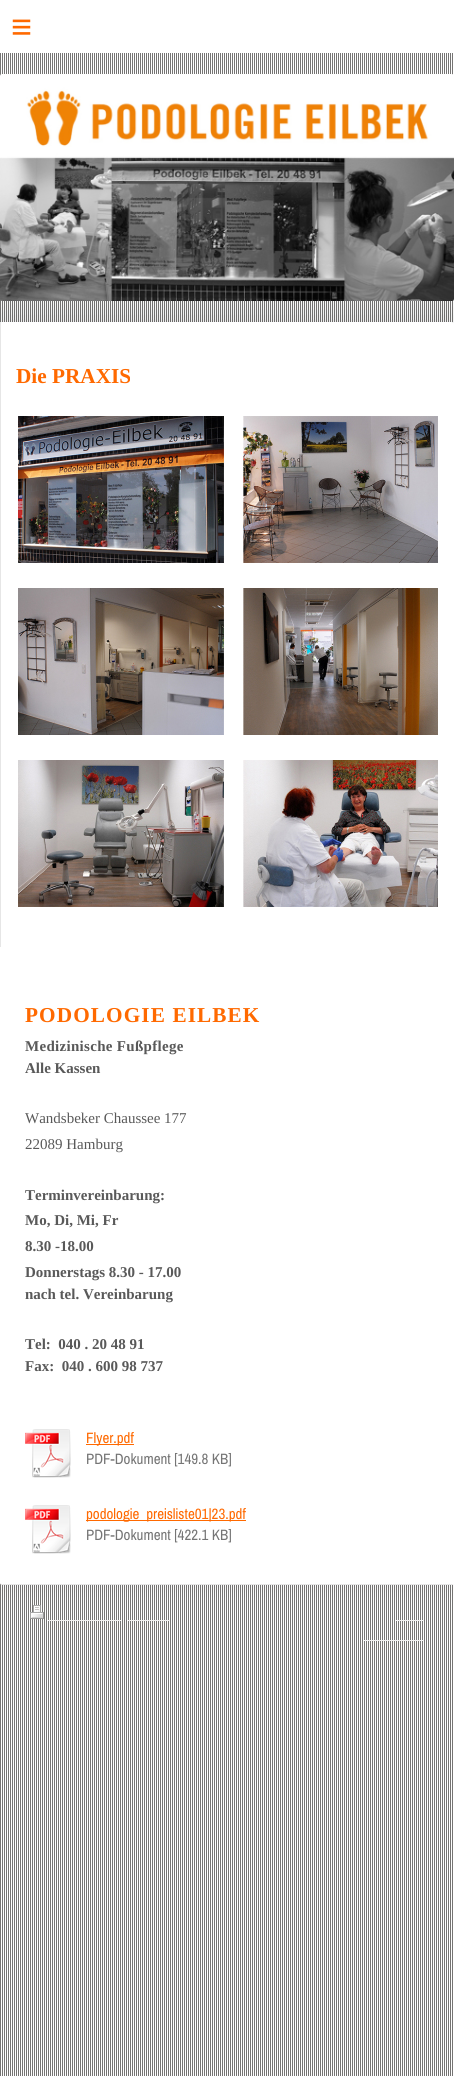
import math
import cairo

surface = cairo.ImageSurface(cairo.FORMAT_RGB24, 454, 2076)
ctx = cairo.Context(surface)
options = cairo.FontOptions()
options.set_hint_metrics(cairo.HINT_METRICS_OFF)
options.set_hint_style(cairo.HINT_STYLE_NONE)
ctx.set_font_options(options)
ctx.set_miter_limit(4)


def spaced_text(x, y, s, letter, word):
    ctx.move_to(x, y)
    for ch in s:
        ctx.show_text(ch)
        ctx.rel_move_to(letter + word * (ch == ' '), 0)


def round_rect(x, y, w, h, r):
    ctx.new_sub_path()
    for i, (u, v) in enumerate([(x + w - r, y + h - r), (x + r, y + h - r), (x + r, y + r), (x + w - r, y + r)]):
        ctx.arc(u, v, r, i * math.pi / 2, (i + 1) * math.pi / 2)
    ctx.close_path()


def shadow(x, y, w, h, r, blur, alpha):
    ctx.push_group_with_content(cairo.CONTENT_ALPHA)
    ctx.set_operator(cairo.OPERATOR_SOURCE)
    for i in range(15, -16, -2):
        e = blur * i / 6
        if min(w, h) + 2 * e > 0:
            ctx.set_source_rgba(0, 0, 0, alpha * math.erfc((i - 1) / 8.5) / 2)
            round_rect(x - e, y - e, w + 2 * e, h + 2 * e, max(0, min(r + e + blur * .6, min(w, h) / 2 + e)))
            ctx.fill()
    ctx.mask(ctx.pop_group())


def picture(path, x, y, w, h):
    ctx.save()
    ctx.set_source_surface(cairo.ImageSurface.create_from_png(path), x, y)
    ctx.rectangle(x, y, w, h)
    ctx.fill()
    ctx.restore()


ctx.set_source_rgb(0.459, 0.455, 0.451)
ctx.paint()
picture("img1.png", 1, 53, 453, 2023)
ctx.set_source_rgb(1, 1, 1)
ctx.rectangle(0, 0, 454, 53)
ctx.fill()
ctx.select_font_face("Liberation Sans")
ctx.set_font_size(36)
ctx.set_source_rgb(1, 0.412, 0)
spaced_text(11, 39, "≡", 10, 0)
picture("img2.png", 0, 74, 454, 227)
ctx.set_source_rgb(0, 0, 0)
shadow(0, 312, 454, 1263, 2, 15, 0.1)
ctx.set_source_rgb(1, 1, 1)
round_rect(0, 322, 454, 1263, 2)
ctx.fill()
ctx.set_source_rgb(0.902, 0.902, 0.902)
ctx.rectangle(1, 1584, 452, 1)
ctx.fill()
ctx.rectangle(0, 322, 1, 625)
ctx.fill()
ctx.select_font_face("Liberation Serif", cairo.FONT_SLANT_NORMAL, cairo.FONT_WEIGHT_BOLD)
ctx.set_font_size(21.25)
ctx.set_source_rgb(1, 0.412, 0)
ctx.move_to(16, 383)
ctx.show_text("Die PRAXIS")
picture("img3.png", 18, 416, 420, 147)
picture("img4.png", 18, 588, 420, 147)
picture("img5.png", 18, 760, 420, 147)
spaced_text(25, 1022, "PODOLOGIE EILBEK", 1.1, 0)
ctx.set_font_size(15)
ctx.set_source_rgb(0.349, 0.349, 0.349)
spaced_text(25, 1051, "Medizinische Fußpflege", 0.3, 0)
ctx.move_to(25, 1073)
ctx.show_text("Alle Kassen")
ctx.select_font_face("Liberation Serif")
ctx.move_to(25, 1123)
ctx.show_text("Wandsbeker Chaussee 177")
ctx.move_to(25, 1149)
ctx.show_text("22089 Hamburg")
ctx.select_font_face("Liberation Serif", cairo.FONT_SLANT_NORMAL, cairo.FONT_WEIGHT_BOLD)
ctx.move_to(25, 1200)
ctx.show_text("Terminvereinbarung:")
ctx.move_to(25, 1225)
ctx.show_text("Mo, Di, Mi, Fr")
ctx.move_to(25, 1251)
ctx.show_text("8.30 -18.00")
ctx.move_to(25, 1277)
ctx.show_text("Donnerstags 8.30 - 17.00")
ctx.move_to(25, 1299)
ctx.show_text("nach tel. Vereinbarung")
ctx.move_to(25, 1349)
ctx.show_text("Tel:  040 . 20 48 91")
ctx.move_to(25, 1371)
ctx.show_text("Fax:  040 . 600 98 737")
picture("img6.png", 25, 1429, 46, 49)
ctx.set_source_rgb(1, 0.412, 0)
ctx.rectangle(86, 1444, 48, 1)
ctx.fill()
ctx.select_font_face("Archivo Narrow")
ctx.move_to(86, 1443)
ctx.show_text("Flyer.pdf")
ctx.set_source_rgb(0.459, 0.459, 0.459)
ctx.move_to(86, 1464)
ctx.show_text("PDF-Dokument [149.8 KB]")
picture("img6.png", 25, 1505, 46, 49)
ctx.set_source_rgb(1, 0.412, 0)
ctx.rectangle(86, 1520, 160, 1)
ctx.fill()
ctx.move_to(86, 1519)
ctx.show_text("podologie_preisliste01|23.pdf")
ctx.set_source_rgb(0.459, 0.459, 0.459)
ctx.move_to(86, 1540)
ctx.show_text("PDF-Dokument [422.1 KB]")
picture("img7.png", 30, 1605, 14, 14)
ctx.set_source_rgb(0.945, 0.945, 0.945)
ctx.rectangle(48, 1620, 73, 1)
ctx.fill()
ctx.rectangle(128, 1620, 42, 1)
ctx.fill()
ctx.rectangle(396, 1620, 28, 1)
ctx.fill()
ctx.rectangle(364, 1640, 60, 1)
ctx.fill()
surface.write_to_png("page.png")
